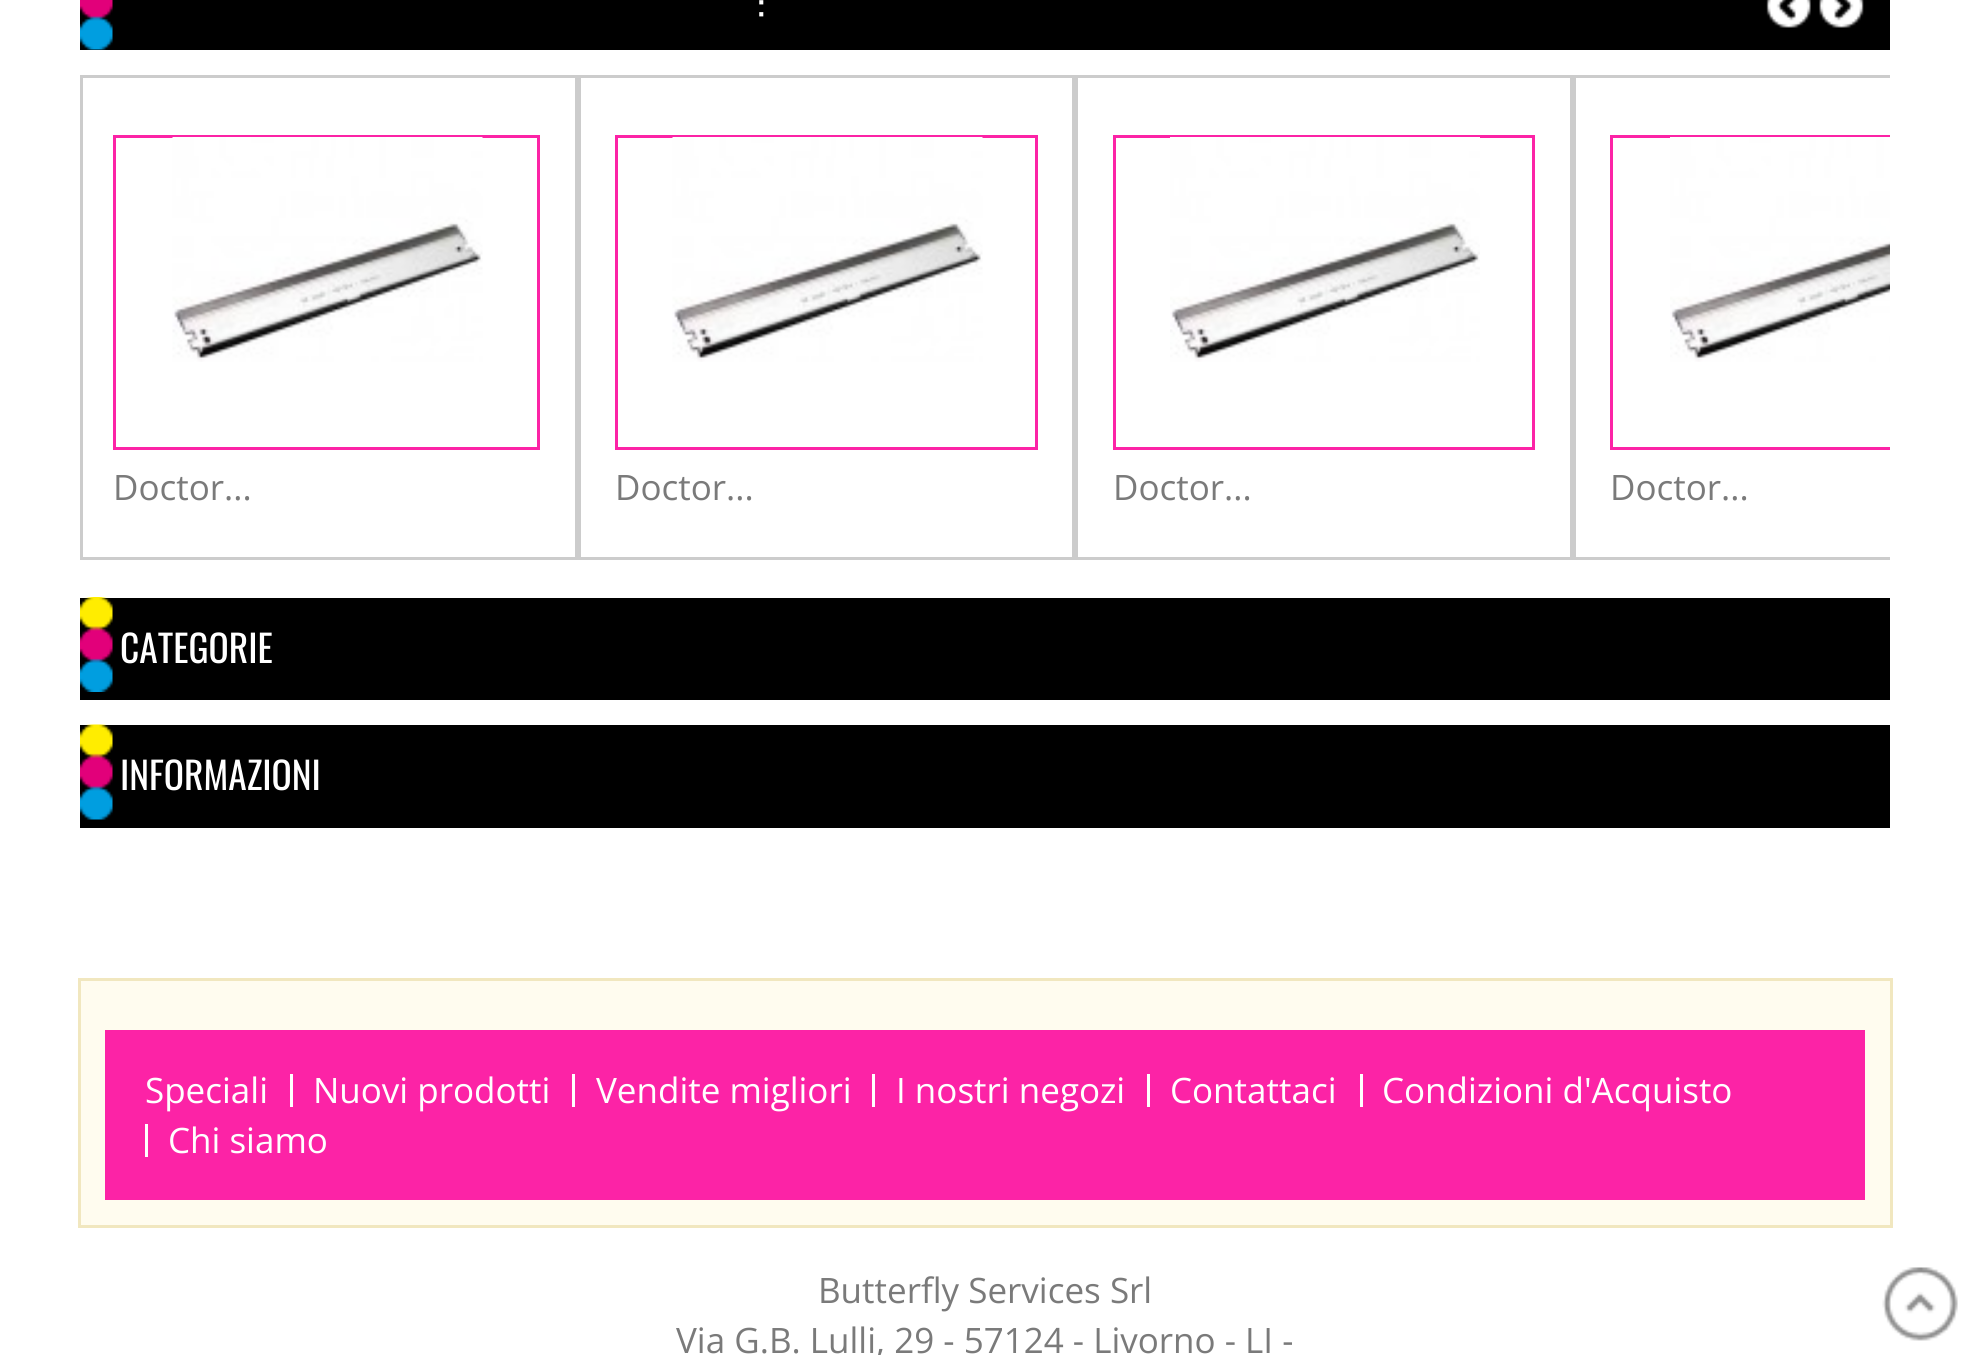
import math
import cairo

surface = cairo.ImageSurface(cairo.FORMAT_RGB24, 1970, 1355)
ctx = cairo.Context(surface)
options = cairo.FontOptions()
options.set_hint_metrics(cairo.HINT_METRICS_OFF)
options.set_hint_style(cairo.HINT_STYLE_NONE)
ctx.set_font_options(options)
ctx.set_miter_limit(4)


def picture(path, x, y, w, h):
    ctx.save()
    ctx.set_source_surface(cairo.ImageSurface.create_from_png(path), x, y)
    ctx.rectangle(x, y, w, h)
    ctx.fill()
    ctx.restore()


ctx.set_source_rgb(1, 1, 1)
ctx.paint()
ctx.set_source_rgb(0, 0, 0)
ctx.rectangle(80, 0, 1810, 50)
ctx.fill()
picture("img1.png", 80, 0, 33, 50)
ctx.select_font_face("Oswald")
ctx.set_font_size(37.5)
ctx.set_source_rgb(1, 1, 1)
ctx.move_to(757, 20)
ctx.show_text(":")
picture("img2.png", 1766, 0, 45, 28)
picture("img3.png", 1819, 0, 45, 28)
ctx.rectangle(81.5, 76.5, 495, 482)
ctx.set_source_rgb(0.8, 0.8, 0.8)
ctx.set_line_width(3)
ctx.stroke()
ctx.rectangle(114.5, 136.5, 424, 312)
ctx.set_source_rgb(0.988, 0.137, 0.651)
ctx.stroke()
picture("img4.png", 172, 137, 311, 225)
ctx.select_font_face("Open Sans")
ctx.set_font_size(35)
ctx.set_source_rgb(0.478, 0.478, 0.478)
ctx.move_to(113, 500)
ctx.show_text("Doctor...")
ctx.rectangle(579.5, 76.5, 494, 482)
ctx.set_source_rgb(0.8, 0.8, 0.8)
ctx.stroke()
ctx.rectangle(616.5, 136.5, 420, 312)
ctx.set_source_rgb(0.988, 0.137, 0.651)
ctx.stroke()
picture("img5.png", 672, 137, 311, 225)
ctx.set_source_rgb(0.478, 0.478, 0.478)
ctx.move_to(615, 500)
ctx.show_text("Doctor...")
ctx.rectangle(1076.5, 76.5, 495, 482)
ctx.set_source_rgb(0.8, 0.8, 0.8)
ctx.stroke()
ctx.rectangle(1114.5, 136.5, 419, 312)
ctx.set_source_rgb(0.988, 0.137, 0.651)
ctx.stroke()
picture("img6.png", 1170, 137, 310, 225)
ctx.set_source_rgb(0.478, 0.478, 0.478)
ctx.move_to(1113, 500)
ctx.show_text("Doctor...")
ctx.save()
ctx.rectangle(80, 50, 1810, 523)
ctx.clip()
ctx.rectangle(1574.5, 76.5, 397, 482)
ctx.set_source_rgb(0.8, 0.8, 0.8)
ctx.stroke()
ctx.restore()
ctx.save()
ctx.rectangle(1610, 135, 280, 403)
ctx.clip()
ctx.rectangle(1611.5, 136.5, 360, 312)
ctx.set_source_rgb(0.988, 0.137, 0.651)
ctx.stroke()
ctx.restore()
picture("img7.png", 1670, 137, 220, 225)
ctx.move_to(1610, 500)
ctx.show_text("Doctor...")
ctx.set_source_rgb(0, 0, 0)
ctx.rectangle(80, 598, 1810, 102)
ctx.fill()
picture("img8.png", 80, 597, 33, 95)
ctx.select_font_face("Oswald")
ctx.set_font_size(37.5)
ctx.set_source_rgb(1, 1, 1)
ctx.move_to(120, 663)
ctx.show_text("CATEGORIE")
ctx.set_source_rgb(0, 0, 0)
ctx.rectangle(80, 725, 1810, 103)
ctx.fill()
picture("img9.png", 80, 724, 33, 96)
ctx.set_source_rgb(1, 1, 1)
ctx.move_to(120, 790)
ctx.show_text("INFORMAZIONI")
ctx.set_source_rgb(1, 0.988, 0.937)
ctx.rectangle(79.5, 979.5, 1812, 247)
ctx.fill_preserve()
ctx.set_source_rgb(0.945, 0.906, 0.749)
ctx.stroke()
ctx.set_source_rgb(0.988, 0.137, 0.651)
ctx.rectangle(105, 1030, 1760, 170)
ctx.fill()
ctx.select_font_face("Open Sans")
ctx.set_font_size(35)
ctx.set_source_rgb(1, 1, 1)
ctx.move_to(145, 1103)
ctx.show_text("Speciali")
ctx.rectangle(290, 1074, 3, 33)
ctx.fill()
ctx.move_to(313, 1103)
ctx.show_text("Nuovi prodotti")
ctx.rectangle(572, 1074, 3, 33)
ctx.fill()
ctx.move_to(596, 1103)
ctx.show_text("Vendite migliori")
ctx.rectangle(872, 1074, 3, 33)
ctx.fill()
ctx.move_to(896, 1103)
ctx.show_text("I nostri negozi")
ctx.rectangle(1147, 1074, 3, 33)
ctx.fill()
ctx.move_to(1170, 1103)
ctx.show_text("Contattaci")
ctx.rectangle(1360, 1074, 3, 33)
ctx.fill()
ctx.move_to(1382, 1103)
ctx.show_text("Condizioni d'Acquisto")
ctx.rectangle(145, 1124, 3, 33)
ctx.fill()
ctx.move_to(168, 1153)
ctx.show_text("Chi siamo")
ctx.set_source_rgb(0.478, 0.478, 0.478)
ctx.move_to(818, 1303)
ctx.show_text("Butterfly Services Srl")
ctx.move_to(676, 1353)
ctx.show_text("Via G.B. Lulli, 29 - 57124 - Livorno - LI -")
picture("img10.png", 1882, 1267, 76, 74)
surface.write_to_png("page.png")
